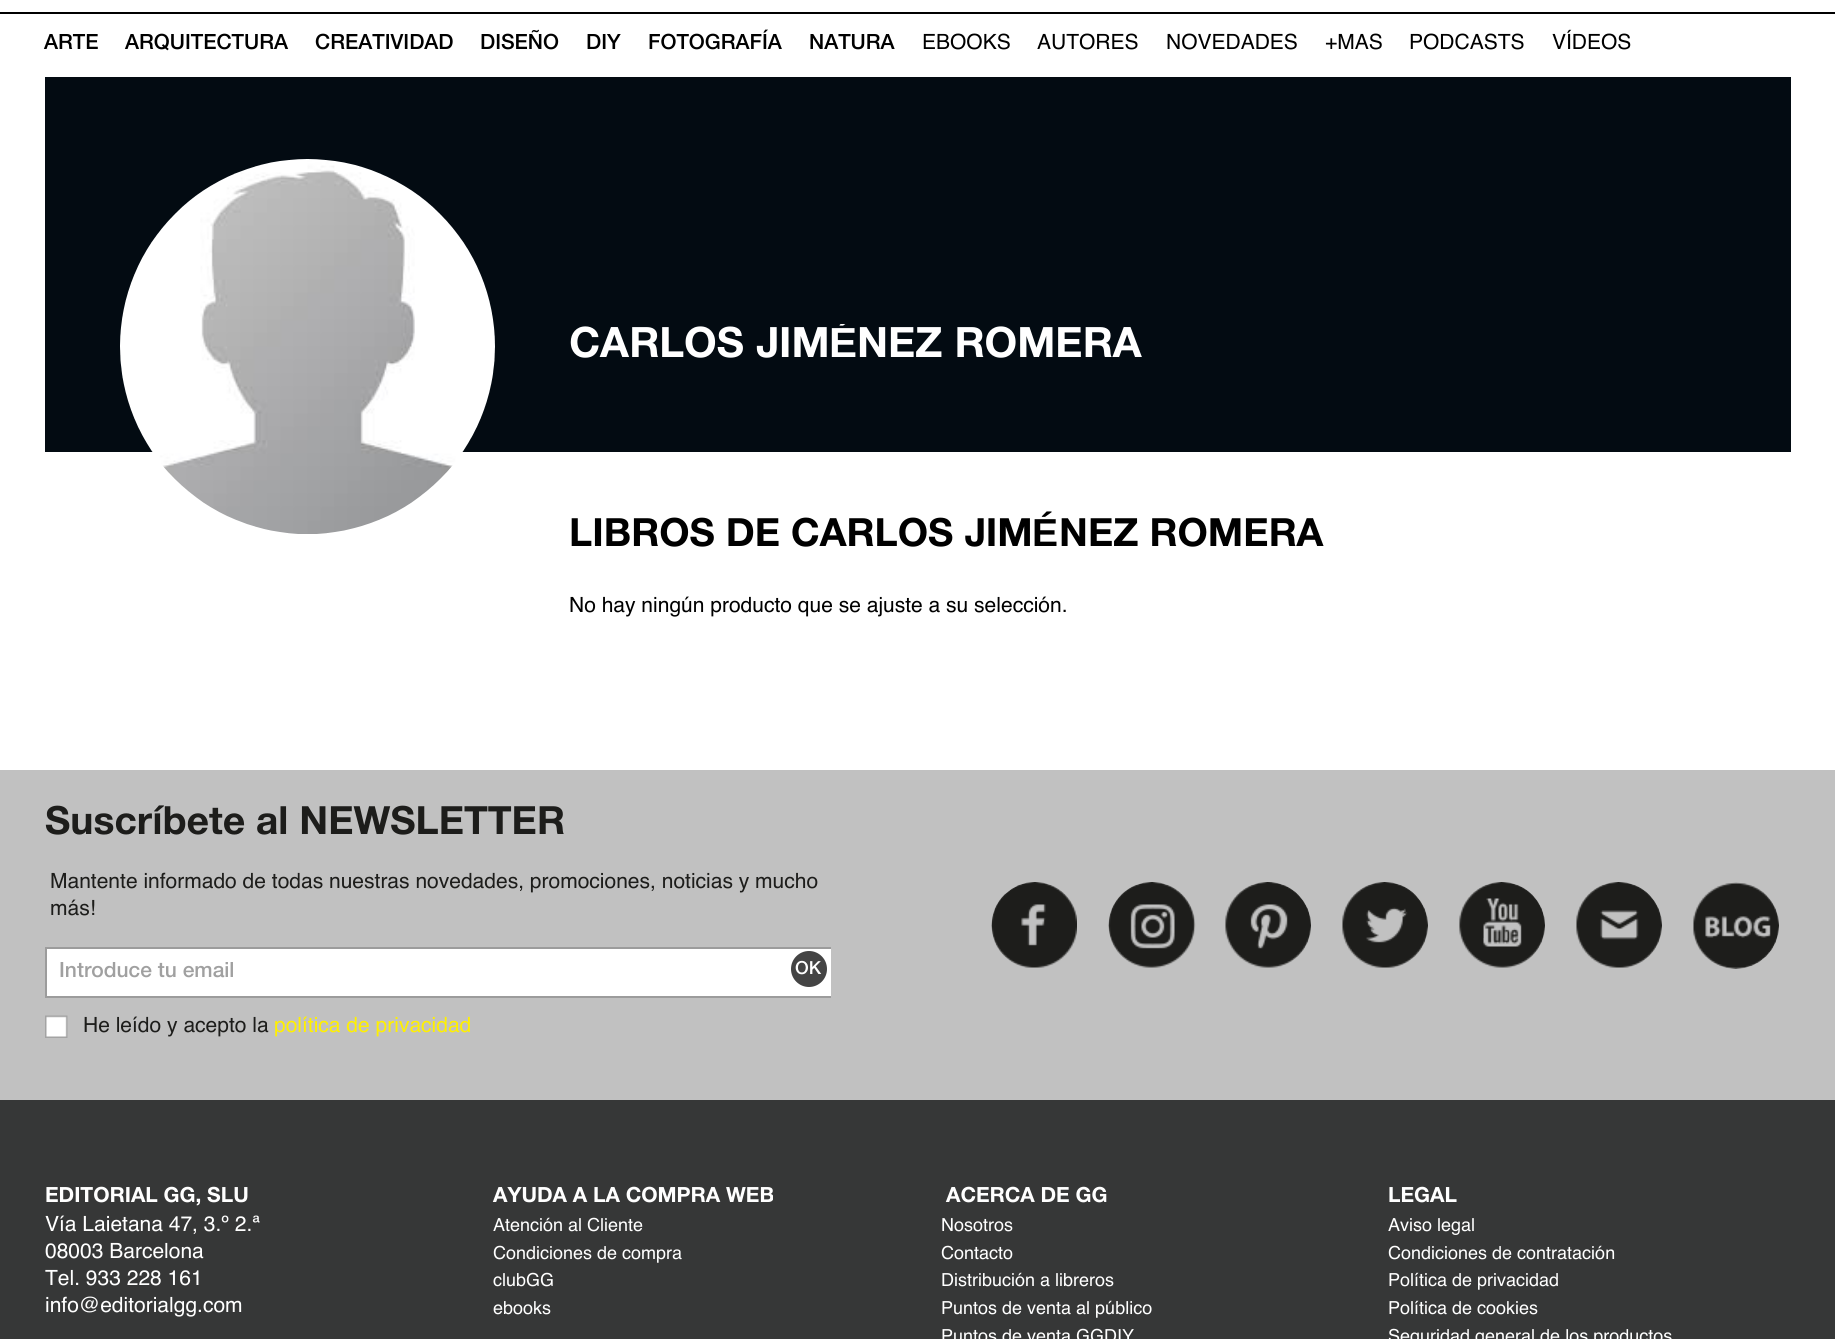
import math
import cairo

surface = cairo.ImageSurface(cairo.FORMAT_RGB24, 1835, 1339)
ctx = cairo.Context(surface)
options = cairo.FontOptions()
options.set_hint_metrics(cairo.HINT_METRICS_OFF)
options.set_hint_style(cairo.HINT_STYLE_NONE)
ctx.set_font_options(options)
ctx.set_miter_limit(4)


def picture(path, x, y, w, h):
    ctx.save()
    ctx.set_source_surface(cairo.ImageSurface.create_from_png(path), x, y)
    ctx.rectangle(x, y, w, h)
    ctx.fill()
    ctx.restore()


ctx.set_source_rgb(1, 1, 1)
ctx.paint()
ctx.set_source_rgb(0, 0, 0)
ctx.rectangle(0, 12, 1835, 2)
ctx.fill()
ctx.select_font_face("Helvetica Neue Medium")
ctx.set_font_size(21)
ctx.move_to(44, 49)
ctx.show_text("ARTE")
ctx.move_to(125, 49)
ctx.show_text("ARQUITECTURA")
ctx.move_to(315, 49)
ctx.show_text("CREATIVIDAD")
ctx.move_to(480, 49)
ctx.show_text("DISEÑO")
ctx.move_to(586, 49)
ctx.show_text("DIY")
ctx.move_to(648, 49)
ctx.show_text("FOTOGRAFÍA")
ctx.move_to(809, 49)
ctx.show_text("NATURA")
ctx.select_font_face("Helvetica")
ctx.move_to(922, 49)
ctx.show_text("EBOOKS")
ctx.move_to(1037, 49)
ctx.show_text("AUTORES")
ctx.move_to(1166, 49)
ctx.show_text("NOVEDADES")
ctx.move_to(1325, 49)
ctx.show_text("+MAS")
ctx.move_to(1409, 49)
ctx.show_text("PODCASTS")
ctx.move_to(1552, 49)
ctx.show_text("VÍDEOS")
ctx.set_source_rgb(0.012, 0.043, 0.071)
ctx.rectangle(45, 77, 1746, 375)
ctx.fill()
picture("img1.png", 120, 159, 375, 375)
ctx.select_font_face("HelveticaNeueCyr", cairo.FONT_SLANT_NORMAL, cairo.FONT_WEIGHT_BOLD)
ctx.set_font_size(42)
ctx.set_source_rgb(1, 1, 1)
ctx.move_to(569, 357)
ctx.show_text("CARLOS JIM")
ctx.save()
ctx.rectangle(569, 324, 573, 128)
ctx.clip()
ctx.select_font_face("Liberation Sans", cairo.FONT_SLANT_NORMAL, cairo.FONT_WEIGHT_BOLD)
ctx.move_to(829, 357)
ctx.show_text("É")
ctx.restore()
ctx.move_to(857, 357)
ctx.show_text("NEZ ROMERA")
ctx.set_font_size(39)
ctx.set_source_rgb(0, 0, 0)
ctx.move_to(569, 546)
ctx.show_text("LIBROS DE CARLOS JIM")
ctx.select_font_face("Liberation Sans", cairo.FONT_SLANT_NORMAL, cairo.FONT_WEIGHT_BOLD)
ctx.move_to(1032, 546)
ctx.show_text("É")
ctx.select_font_face("HelveticaNeueCyr", cairo.FONT_SLANT_NORMAL, cairo.FONT_WEIGHT_BOLD)
ctx.move_to(1059, 546)
ctx.show_text("NEZ ROMERA")
ctx.select_font_face("Helvetica")
ctx.set_font_size(21)
ctx.move_to(569, 612)
ctx.show_text("No hay ningún producto que se ajuste a su selección.")
ctx.set_source_rgb(0.757, 0.757, 0.757)
ctx.rectangle(0, 770, 1835, 330)
ctx.fill()
ctx.select_font_face("HelveticaNeueCyr", cairo.FONT_SLANT_NORMAL, cairo.FONT_WEIGHT_BOLD)
ctx.set_font_size(39)
ctx.set_source_rgb(0.114, 0.114, 0.106)
ctx.move_to(45, 834)
ctx.show_text("Suscr bete al NEWSLETTER")
ctx.select_font_face("Liberation Sans", cairo.FONT_SLANT_NORMAL, cairo.FONT_WEIGHT_BOLD)
ctx.move_to(152, 834)
ctx.show_text("í")
ctx.select_font_face("Helvetica")
ctx.set_font_size(21)
ctx.move_to(50, 888)
ctx.show_text("Mantente informado de todas nuestras novedades, promociones, noticias y mucho")
ctx.move_to(50, 915)
ctx.show_text("más!")
ctx.set_source_rgb(1, 1, 1)
ctx.rectangle(47, 949, 784, 47)
ctx.fill()
ctx.set_source_rgb(0.612, 0.612, 0.612)
ctx.rectangle(45, 947, 786, 2)
ctx.fill()
ctx.rectangle(45, 996, 786, 2)
ctx.fill()
ctx.rectangle(45, 947, 2, 51)
ctx.fill()
ctx.select_font_face("Helvetica Neue Medium")
ctx.set_source_rgb(0.627, 0.627, 0.627)
ctx.move_to(59, 977)
ctx.show_text("Introduce tu email")
ctx.set_source_rgb(0.267, 0.267, 0.267)
ctx.new_path()
ctx.arc(809, 969, 18, 0, 2 * math.pi)
ctx.fill()
ctx.set_font_size(18)
ctx.set_source_rgb(1, 1, 1)
ctx.move_to(795, 974)
ctx.show_text("OK")
picture("img2.png", 45, 1015, 23, 23)
ctx.select_font_face("Helvetica")
ctx.set_font_size(21)
ctx.set_source_rgb(0.114, 0.114, 0.106)
ctx.move_to(83, 1032)
ctx.show_text("He leído y acepto la")
ctx.set_source_rgb(1, 0.941, 0)
ctx.move_to(274, 1032)
ctx.show_text("política de privacidad")
picture("img3.png", 991, 882, 86, 86)
picture("img4.png", 1108, 882, 88, 86)
picture("img5.png", 1225, 882, 86, 86)
picture("img6.png", 1342, 882, 86, 86)
picture("img7.png", 1459, 882, 86, 86)
picture("img8.png", 1576, 882, 86, 86)
picture("img9.png", 1693, 882, 86, 87)
ctx.set_source_rgb(0.212, 0.216, 0.216)
ctx.rectangle(0, 1100, 1835, 239)
ctx.fill()
ctx.select_font_face("HelveticaNeueCyr", cairo.FONT_SLANT_NORMAL, cairo.FONT_WEIGHT_BOLD)
ctx.set_source_rgb(1, 1, 1)
ctx.move_to(45, 1202)
ctx.show_text("EDITORIAL GG, SLU")
ctx.select_font_face("Helvetica")
ctx.move_to(45, 1231)
ctx.show_text("Vía Laietana 47, 3.º 2.ª")
ctx.move_to(45, 1258)
ctx.show_text("08003 Barcelona")
ctx.move_to(45, 1285)
ctx.show_text("Tel. 933 228 161")
ctx.move_to(45, 1312)
ctx.show_text("info@editorialgg.com")
ctx.select_font_face("HelveticaNeueCyr", cairo.FONT_SLANT_NORMAL, cairo.FONT_WEIGHT_BOLD)
ctx.move_to(493, 1202)
ctx.show_text("AYUDA A LA COMPRA WEB")
ctx.select_font_face("Helvetica")
ctx.set_font_size(18)
ctx.move_to(493, 1231)
ctx.show_text("Atención al Cliente")
ctx.move_to(493, 1259)
ctx.show_text("Condiciones de compra")
ctx.move_to(493, 1286)
ctx.show_text("clubGG")
ctx.move_to(493, 1314)
ctx.show_text("ebooks")
ctx.select_font_face("HelveticaNeueCyr", cairo.FONT_SLANT_NORMAL, cairo.FONT_WEIGHT_BOLD)
ctx.set_font_size(21)
ctx.move_to(946, 1202)
ctx.show_text("ACERCA DE GG")
ctx.select_font_face("Helvetica")
ctx.set_font_size(18)
ctx.move_to(941, 1231)
ctx.show_text("Nosotros")
ctx.move_to(941, 1259)
ctx.show_text("Contacto")
ctx.move_to(941, 1286)
ctx.show_text("Distribución a libreros")
ctx.move_to(941, 1314)
ctx.show_text("Puntos de venta al público")
ctx.move_to(941, 1342)
ctx.show_text("Puntos de venta GGDIY")
ctx.select_font_face("HelveticaNeueCyr", cairo.FONT_SLANT_NORMAL, cairo.FONT_WEIGHT_BOLD)
ctx.set_font_size(21)
ctx.move_to(1388, 1202)
ctx.show_text("LEGAL")
ctx.select_font_face("Helvetica")
ctx.set_font_size(18)
ctx.move_to(1388, 1231)
ctx.show_text("Aviso legal")
ctx.move_to(1388, 1259)
ctx.show_text("Condiciones de contratación")
ctx.move_to(1388, 1286)
ctx.show_text("Política de privacidad")
ctx.move_to(1388, 1314)
ctx.show_text("Política de cookies")
ctx.move_to(1388, 1342)
ctx.show_text("Seguridad general de los productos")
surface.write_to_png("page.png")
